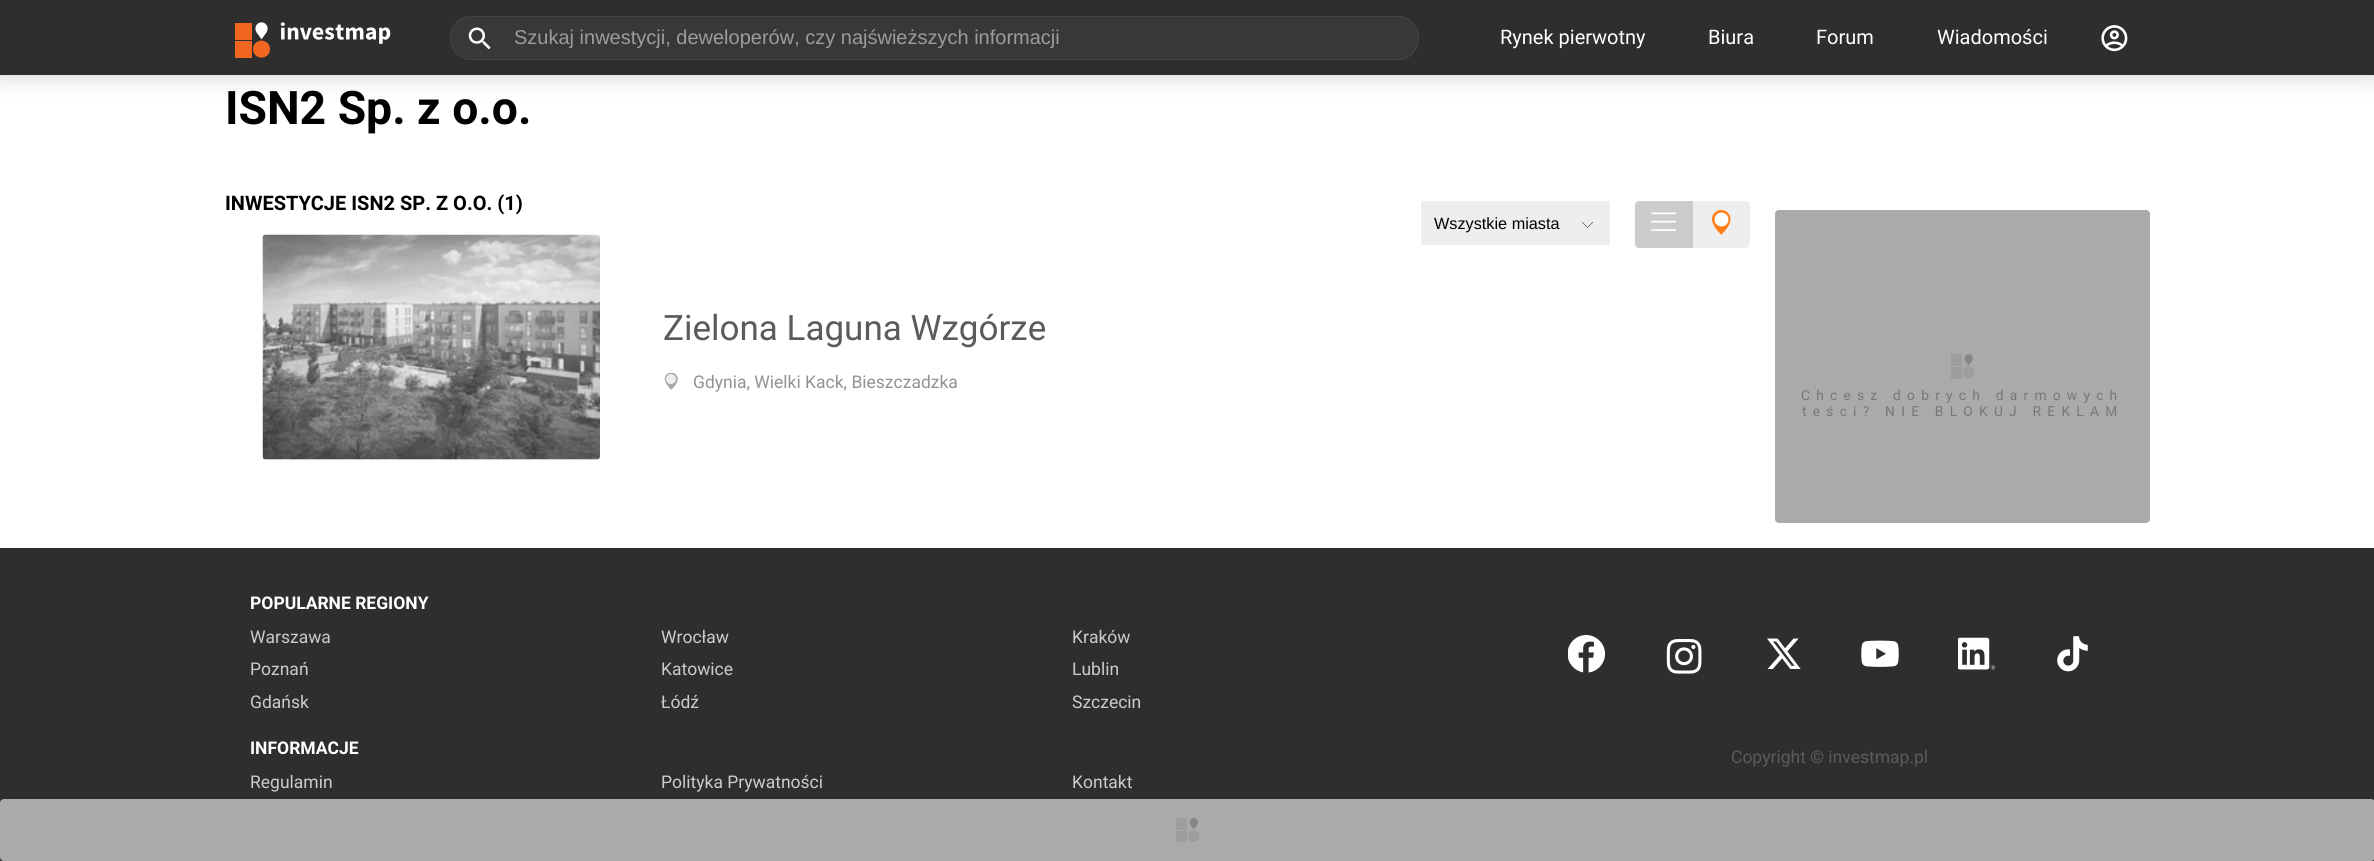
import math
import cairo

surface = cairo.ImageSurface(cairo.FORMAT_RGB24, 2374, 861)
ctx = cairo.Context(surface)
options = cairo.FontOptions()
options.set_hint_metrics(cairo.HINT_METRICS_OFF)
options.set_hint_style(cairo.HINT_STYLE_NONE)
ctx.set_font_options(options)
ctx.set_miter_limit(4)


def spaced_text(x, y, s, letter, word):
    ctx.move_to(x, y)
    for ch in s:
        ctx.show_text(ch)
        ctx.rel_move_to(letter + word * (ch == ' '), 0)


def round_rect(x, y, w, h, r):
    ctx.new_sub_path()
    for i, (u, v) in enumerate([(x + w - r, y + h - r), (x + r, y + h - r), (x + r, y + r), (x + w - r, y + r)]):
        ctx.arc(u, v, r, i * math.pi / 2, (i + 1) * math.pi / 2)
    ctx.close_path()


def shadow(x, y, w, h, r, blur, alpha):
    ctx.push_group_with_content(cairo.CONTENT_ALPHA)
    ctx.set_operator(cairo.OPERATOR_SOURCE)
    for i in range(15, -16, -2):
        e = blur * i / 6
        if min(w, h) + 2 * e > 0:
            ctx.set_source_rgba(0, 0, 0, alpha * math.erfc((i - 1) / 8.5) / 2)
            round_rect(x - e, y - e, w + 2 * e, h + 2 * e, max(0, min(r + e + blur * .6, min(w, h) / 2 + e)))
            ctx.fill()
    ctx.mask(ctx.pop_group())


def picture(path, x, y, w, h):
    ctx.save()
    ctx.set_source_surface(cairo.ImageSurface.create_from_png(path), x, y)
    ctx.rectangle(x, y, w, h)
    ctx.fill()
    ctx.restore()


ctx.set_source_rgb(1, 1, 1)
ctx.paint()
ctx.set_source_rgb(0, 0, 0)
shadow(0, 0, 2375, 75, 0, 12.5, 0.2)
ctx.set_source_rgb(0.18, 0.18, 0.18)
ctx.rectangle(0, 0, 2374, 75)
ctx.fill()
picture("img1.png", 235, 22, 156, 36)
ctx.set_source_rgb(0.22, 0.22, 0.22)
round_rect(450.5, 16.5, 968, 43, 20.5)
ctx.fill_preserve()
ctx.set_source_rgb(0.267, 0.267, 0.267)
ctx.set_line_width(1)
ctx.stroke()
picture("img2.png", 468, 27, 23, 23)
ctx.select_font_face("Liberation Sans")
ctx.set_font_size(20)
ctx.set_source_rgb(0.612, 0.612, 0.612)
ctx.move_to(514, 44)
ctx.show_text("Szukaj inwestycji, deweloperów, czy najświeższych informacji")
ctx.select_font_face("Roboto")
ctx.set_source_rgb(1, 1, 1)
ctx.move_to(1500, 44)
ctx.show_text("Rynek pierwotny")
ctx.move_to(1708, 44)
ctx.show_text("Biura")
ctx.move_to(1816, 44)
ctx.show_text("Forum")
ctx.move_to(1937, 44)
ctx.show_text("Wiadomości")
picture("img3.png", 2101, 25, 27, 27)
ctx.select_font_face("Roboto", cairo.FONT_SLANT_NORMAL, cairo.FONT_WEIGHT_BOLD)
ctx.set_font_size(46.25)
ctx.set_source_rgb(0, 0, 0)
ctx.move_to(225, 124)
ctx.show_text("ISN2 Sp. z o.o.")
ctx.set_font_size(20)
ctx.move_to(225, 210)
ctx.show_text("INWESTYCJE ISN2 SP. Z O.O. (1)")
ctx.set_source_rgb(0.933, 0.933, 0.933)
ctx.rectangle(1421, 201, 189, 44)
ctx.fill()
ctx.select_font_face("Liberation Sans")
ctx.set_font_size(16.25)
ctx.set_source_rgb(0, 0, 0)
ctx.move_to(1434, 229)
ctx.show_text("Wszystkie miasta")
ctx.new_path()
ctx.move_to(1582, 222)
ctx.line_to(1587.5, 227.5)
ctx.line_to(1593, 222)
ctx.set_line_width(0.4)
ctx.stroke()
ctx.set_source_rgb(0.8, 0.8, 0.8)
ctx.new_path()
ctx.move_to(1639, 201)
ctx.line_to(1693, 201)
ctx.line_to(1693, 248)
ctx.line_to(1639, 248)
ctx.curve_to(1637, 248, 1635, 246, 1635, 244)
ctx.line_to(1635, 205)
ctx.curve_to(1635, 203, 1637, 201, 1639, 201)
ctx.close_path()
ctx.fill()
picture("img4.png", 1651, 212, 25, 19)
ctx.set_source_rgb(0.933, 0.933, 0.933)
ctx.new_path()
ctx.move_to(1693, 201)
ctx.line_to(1746, 201)
ctx.curve_to(1748, 201, 1750, 203, 1750, 205)
ctx.line_to(1750, 244)
ctx.curve_to(1750, 246, 1748, 248, 1746, 248)
ctx.line_to(1693, 248)
ctx.close_path()
ctx.fill()
picture("img5.png", 1712, 210, 19, 25)
ctx.set_source_rgb(0.969, 0.969, 0.969)
ctx.rectangle(263, 235, 337, 225)
ctx.fill()
picture("img6.png", 262, 234, 338, 226)
ctx.select_font_face("Roboto")
ctx.set_font_size(35)
ctx.set_source_rgb(0.357, 0.357, 0.357)
ctx.move_to(663, 340)
ctx.show_text("Zielona Laguna Wzgórze")
picture("img7.png", 664, 373, 14, 17)
ctx.set_font_size(17.5)
ctx.set_source_rgb(0.573, 0.573, 0.573)
ctx.move_to(693, 388)
ctx.show_text("Gdynia, Wielki Kack, Bieszczadzka")
ctx.set_source_rgb(0.667, 0.667, 0.667)
round_rect(1775, 210, 375, 313, 4)
ctx.fill()
picture("img8.png", 1951, 354, 24, 25)
ctx.set_font_size(13.75)
ctx.set_source_rgb(0.467, 0.467, 0.467)
spaced_text(1801, 400, "Chcesz dobrych darmowych", 6.25, 0)
spaced_text(1802, 416, "teści? NIE BLOKUJ REKLAM", 6.25, 0)
ctx.set_source_rgb(0.18, 0.18, 0.18)
ctx.rectangle(0, 548, 2374, 313)
ctx.fill()
ctx.select_font_face("Roboto", cairo.FONT_SLANT_NORMAL, cairo.FONT_WEIGHT_BOLD)
ctx.set_font_size(17.5)
ctx.set_source_rgb(1, 1, 1)
ctx.move_to(250, 609)
ctx.show_text("POPULARNE REGIONY")
ctx.select_font_face("Roboto")
ctx.set_source_rgb(0.8, 0.8, 0.8)
ctx.move_to(250, 643)
ctx.show_text("Warszawa")
ctx.move_to(661, 643)
ctx.show_text("Wrocław")
ctx.move_to(1072, 643)
ctx.show_text("Kraków")
ctx.move_to(250, 675)
ctx.show_text("Poznań")
ctx.move_to(661, 675)
ctx.show_text("Katowice")
ctx.move_to(1072, 675)
ctx.show_text("Lublin")
ctx.move_to(250, 708)
ctx.show_text("Gdańsk")
ctx.move_to(661, 708)
ctx.show_text("Łódź")
ctx.move_to(1072, 708)
ctx.show_text("Szczecin")
ctx.select_font_face("Roboto", cairo.FONT_SLANT_NORMAL, cairo.FONT_WEIGHT_BOLD)
ctx.set_source_rgb(1, 1, 1)
ctx.move_to(250, 754)
ctx.show_text("INFORMACJE")
ctx.select_font_face("Roboto")
ctx.set_source_rgb(0.8, 0.8, 0.8)
ctx.move_to(250, 788)
ctx.show_text("Regulamin")
ctx.move_to(661, 788)
ctx.show_text("Polityka Prywatności")
ctx.move_to(1072, 788)
ctx.show_text("Kontakt")
picture("img9.png", 1568, 635, 37, 38)
picture("img10.png", 1666, 639, 36, 35)
picture("img11.png", 1767, 638, 34, 31)
picture("img12.png", 1861, 640, 38, 27)
picture("img13.png", 1958, 637, 37, 33)
picture("img14.png", 2057, 636, 31, 36)
ctx.set_source_rgb(0.357, 0.357, 0.357)
ctx.move_to(1731, 763)
ctx.show_text("Copyright © investmap.pl")
ctx.set_source_rgb(0.667, 0.667, 0.667)
round_rect(0, 799, 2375, 62, 4)
ctx.fill()
picture("img15.png", 1176, 818, 24, 24)
surface.write_to_png("page.png")
